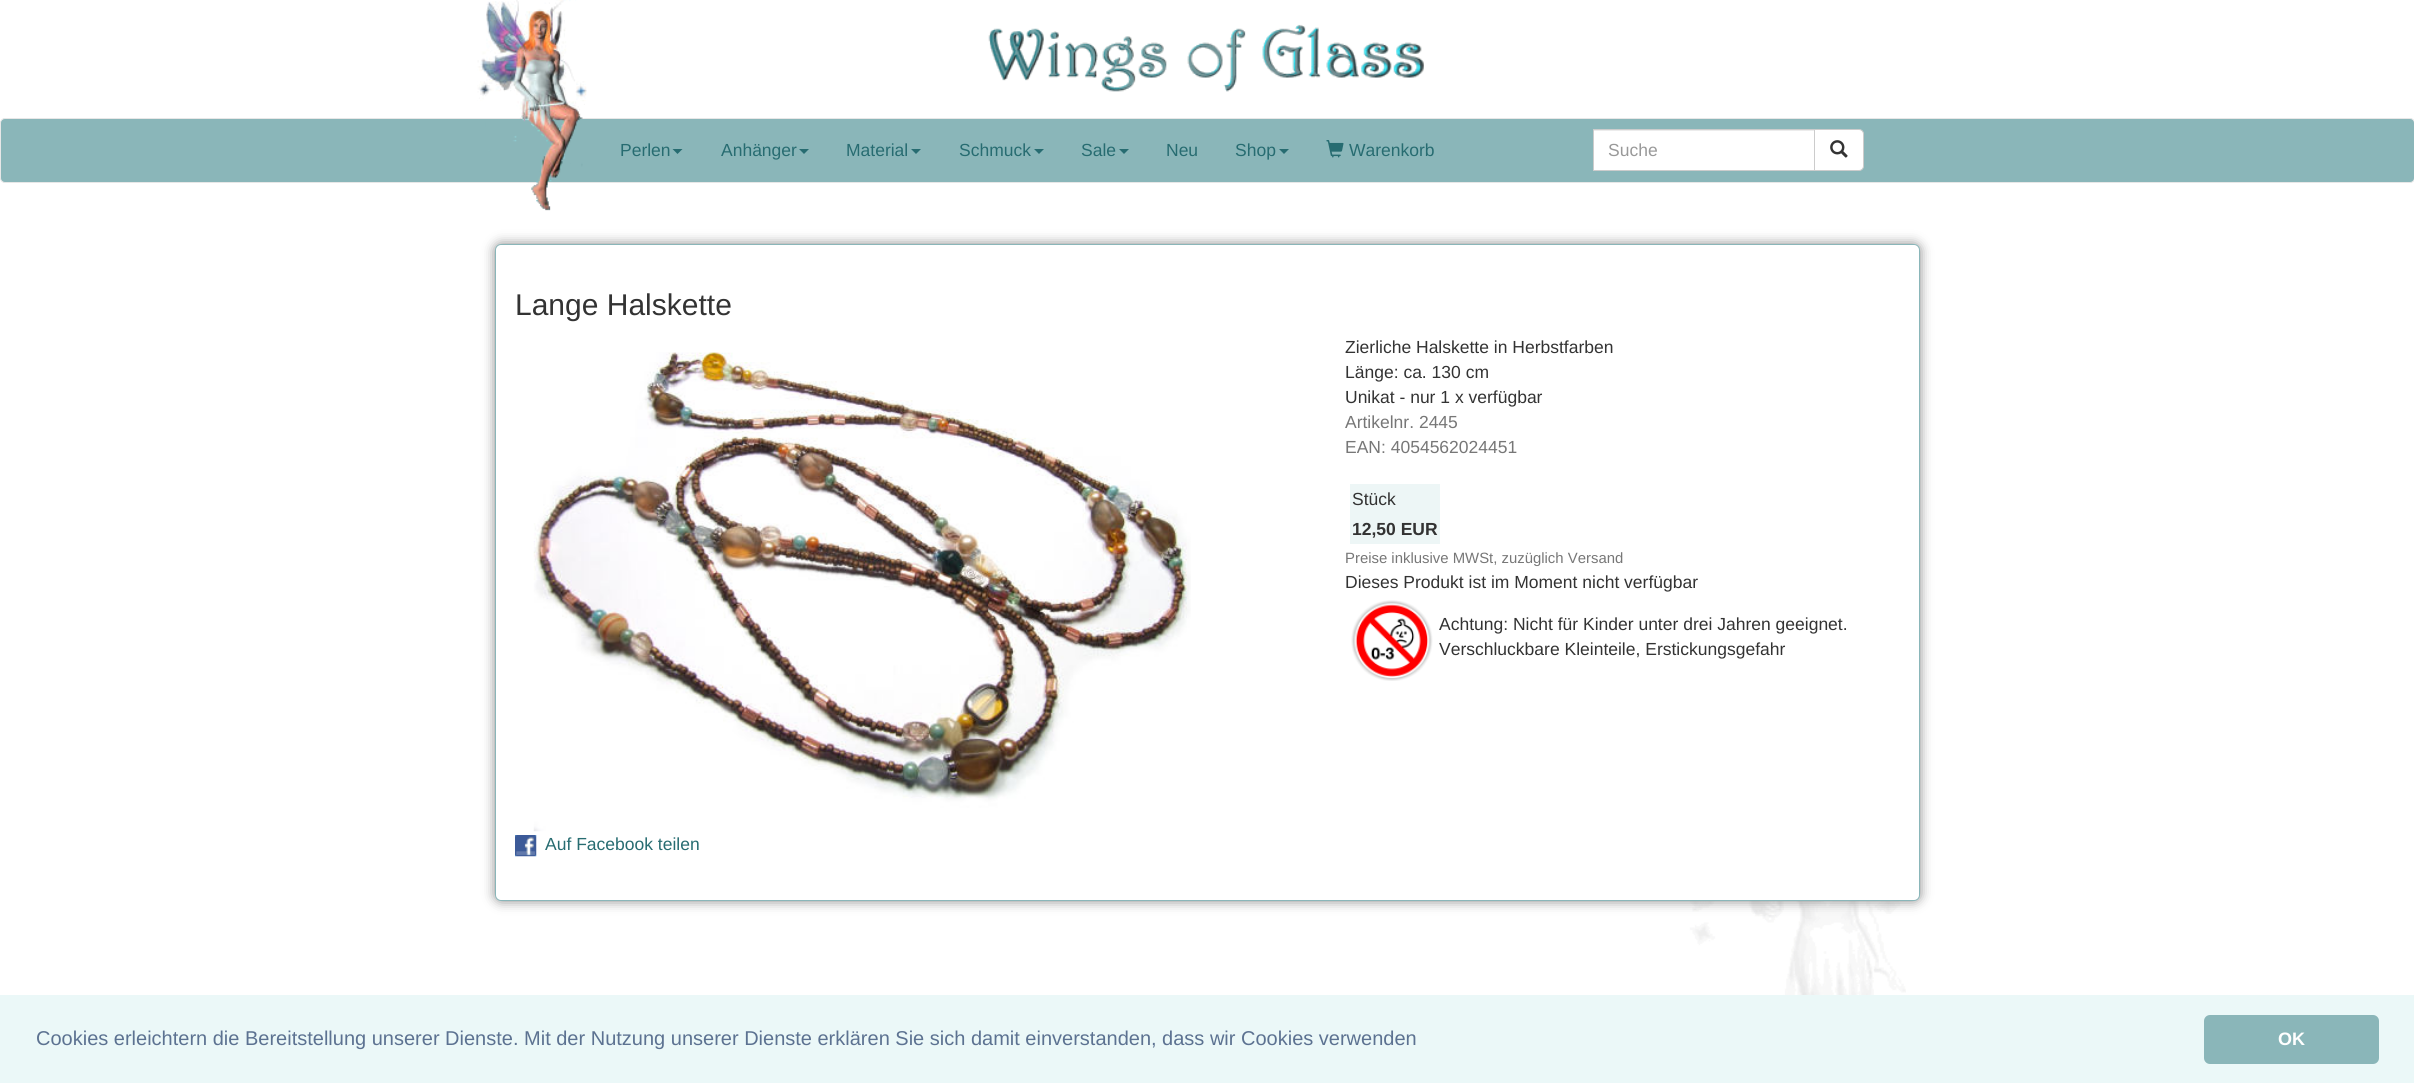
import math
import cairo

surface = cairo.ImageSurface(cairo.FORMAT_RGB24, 2414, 1083)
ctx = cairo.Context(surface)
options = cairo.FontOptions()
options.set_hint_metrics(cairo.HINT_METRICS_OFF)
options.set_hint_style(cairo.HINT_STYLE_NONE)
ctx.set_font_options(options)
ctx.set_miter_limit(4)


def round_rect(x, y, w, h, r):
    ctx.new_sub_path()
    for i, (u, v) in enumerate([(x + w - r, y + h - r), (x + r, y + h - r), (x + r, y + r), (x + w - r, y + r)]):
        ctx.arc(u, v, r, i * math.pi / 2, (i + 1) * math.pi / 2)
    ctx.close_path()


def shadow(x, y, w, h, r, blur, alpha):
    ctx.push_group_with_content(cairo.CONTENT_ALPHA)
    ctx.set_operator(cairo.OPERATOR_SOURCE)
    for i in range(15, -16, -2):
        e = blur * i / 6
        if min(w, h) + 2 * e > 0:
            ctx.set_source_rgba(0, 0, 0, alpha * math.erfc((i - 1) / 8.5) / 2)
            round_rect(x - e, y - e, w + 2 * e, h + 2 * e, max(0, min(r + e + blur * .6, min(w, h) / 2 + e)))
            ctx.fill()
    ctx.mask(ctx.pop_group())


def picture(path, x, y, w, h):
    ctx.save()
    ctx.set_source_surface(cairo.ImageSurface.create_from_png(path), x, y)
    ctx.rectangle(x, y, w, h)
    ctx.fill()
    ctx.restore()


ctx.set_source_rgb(1, 1, 1)
ctx.paint()
picture("img1.png", 988, 24, 436, 68)
ctx.set_source_rgb(0.541, 0.714, 0.725)
round_rect(0.5, 118.5, 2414, 64, 4.5)
ctx.fill_preserve()
ctx.set_source_rgb(0.906, 0.906, 0.906)
ctx.set_line_width(1)
ctx.stroke()
picture("img2.png", 477, 0, 110, 211)
ctx.select_font_face("Liberation Sans")
ctx.set_font_size(17.5)
ctx.set_source_rgb(0.153, 0.424, 0.443)
ctx.move_to(620, 156)
ctx.show_text("Perlen")
ctx.new_path()
ctx.move_to(672.5, 149)
ctx.line_to(682.5, 149)
ctx.line_to(677.5, 154)
ctx.close_path()
ctx.fill()
ctx.move_to(721, 156)
ctx.show_text("Anhänger")
ctx.new_path()
ctx.move_to(799, 149)
ctx.line_to(809, 149)
ctx.line_to(804, 154)
ctx.close_path()
ctx.fill()
ctx.move_to(846, 156)
ctx.show_text("Material")
ctx.new_path()
ctx.move_to(911, 149)
ctx.line_to(921, 149)
ctx.line_to(916, 154)
ctx.close_path()
ctx.fill()
ctx.move_to(959, 156)
ctx.show_text("Schmuck")
ctx.new_path()
ctx.move_to(1034, 149)
ctx.line_to(1044, 149)
ctx.line_to(1039, 154)
ctx.close_path()
ctx.fill()
ctx.move_to(1081, 156)
ctx.show_text("Sale")
ctx.new_path()
ctx.move_to(1119, 149)
ctx.line_to(1129, 149)
ctx.line_to(1124, 154)
ctx.close_path()
ctx.fill()
ctx.move_to(1166, 156)
ctx.show_text("Neu")
ctx.move_to(1235, 156)
ctx.show_text("Shop")
ctx.new_path()
ctx.move_to(1279, 149)
ctx.line_to(1289, 149)
ctx.line_to(1284, 154)
ctx.close_path()
ctx.fill()
picture("img3.png", 1326, 140, 18, 18)
ctx.move_to(1349, 156)
ctx.show_text("Warenkorb")
ctx.set_source_rgb(1, 1, 1)
ctx.rectangle(1594, 131, 220, 39)
ctx.fill()
ctx.set_source_rgb(0.925, 0.925, 0.925)
ctx.rectangle(1594, 130, 220, 1)
ctx.fill()
ctx.rectangle(1593.5, 129.5, 221, 41)
ctx.set_source_rgb(0.8, 0.8, 0.8)
ctx.stroke()
ctx.set_source_rgb(0.6, 0.6, 0.6)
ctx.move_to(1608, 156)
ctx.show_text("Suche")
ctx.set_source_rgb(1, 1, 1)
ctx.new_path()
ctx.move_to(1814.5, 129.5)
ctx.line_to(1859, 129.5)
ctx.curve_to(1861.5, 129.5, 1863.5, 131.5, 1863.5, 134)
ctx.line_to(1863.5, 166)
ctx.curve_to(1863.5, 168.5, 1861.5, 170.5, 1859, 170.5)
ctx.line_to(1814.5, 170.5)
ctx.close_path()
ctx.fill_preserve()
ctx.set_source_rgb(0.8, 0.8, 0.8)
ctx.stroke()
picture("img4.png", 1830, 140, 18, 18)
picture("img5.png", 1630, 901, 276, 94)
ctx.set_source_rgb(0.533, 0.533, 0.533)
shadow(495, 244, 1425, 657, 6, 6, 1)
ctx.set_source_rgb(1, 1, 1)
round_rect(495.5, 244.5, 1424, 656, 5.5)
ctx.fill_preserve()
ctx.set_source_rgb(0.541, 0.714, 0.725)
ctx.stroke()
ctx.set_font_size(30)
ctx.set_source_rgb(0.2, 0.2, 0.2)
ctx.move_to(515, 315)
ctx.show_text("Lange Halskette")
ctx.set_font_size(17.5)
ctx.move_to(1345, 353)
ctx.show_text("Zierliche Halskette in Herbstfarben")
ctx.move_to(1345, 378)
ctx.show_text("Länge: ca. 130 cm")
ctx.move_to(1345, 403)
ctx.show_text("Unikat - nur 1 x verfügbar")
ctx.set_source_rgb(0.467, 0.467, 0.467)
ctx.move_to(1345, 428)
ctx.show_text("Artikelnr. 2445")
ctx.move_to(1345, 453)
ctx.show_text("EAN: 4054562024451")
ctx.set_source_rgb(0.929, 0.961, 0.961)
ctx.rectangle(1350, 484, 90, 60)
ctx.fill()
ctx.set_source_rgb(0.2, 0.2, 0.2)
ctx.move_to(1352, 505)
ctx.show_text("Stück")
ctx.select_font_face("Liberation Sans", cairo.FONT_SLANT_NORMAL, cairo.FONT_WEIGHT_BOLD)
ctx.move_to(1352, 535)
ctx.show_text("12,50 EUR")
ctx.select_font_face("Liberation Sans")
ctx.set_font_size(14.9)
ctx.set_source_rgb(0.467, 0.467, 0.467)
ctx.move_to(1345, 563)
ctx.show_text("Preise inklusive MWSt, zuzüglich Versand")
ctx.set_font_size(17.5)
ctx.set_source_rgb(0.2, 0.2, 0.2)
ctx.move_to(1345, 588)
ctx.show_text("Dieses Produkt ist im Moment nicht verfügbar")
picture("img6.png", 1351, 600, 82, 81)
ctx.move_to(1439, 630)
ctx.show_text("Achtung: Nicht für Kinder unter drei Jahren geeignet.")
ctx.move_to(1439, 655)
ctx.show_text("Verschluckbare Kleinteile, Erstickungsgefahr")
picture("img7.png", 533, 352, 658, 480)
picture("img8.png", 515, 835, 22, 22)
ctx.set_source_rgb(0.153, 0.424, 0.443)
ctx.move_to(545, 850)
ctx.show_text("Auf Facebook teilen")
ctx.set_source_rgb(0.918, 0.969, 0.969)
ctx.rectangle(0, 995, 2414, 88)
ctx.fill()
ctx.set_font_size(20)
ctx.set_source_rgb(0.361, 0.447, 0.569)
ctx.move_to(36, 1045)
ctx.show_text("Cookies erleichtern die Bereitstellung unserer Dienste. Mit der Nutzung unserer Dienste erklären Sie sich damit einverstanden, dass wir Cookies verwenden")
ctx.set_source_rgb(0.541, 0.714, 0.725)
round_rect(2204, 1015, 175, 49, 6)
ctx.fill()
ctx.select_font_face("Liberation Sans", cairo.FONT_SLANT_NORMAL, cairo.FONT_WEIGHT_BOLD)
ctx.set_font_size(18)
ctx.set_source_rgb(1, 1, 1)
ctx.move_to(2278, 1045)
ctx.show_text("OK")
surface.write_to_png("page.png")
